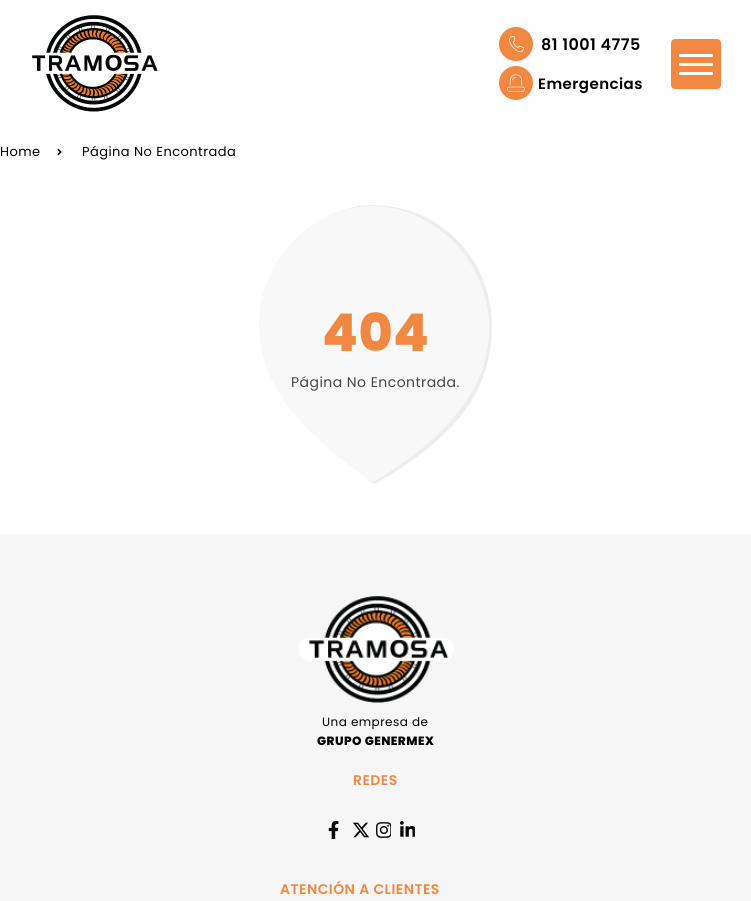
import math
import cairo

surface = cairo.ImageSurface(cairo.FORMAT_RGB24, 751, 901)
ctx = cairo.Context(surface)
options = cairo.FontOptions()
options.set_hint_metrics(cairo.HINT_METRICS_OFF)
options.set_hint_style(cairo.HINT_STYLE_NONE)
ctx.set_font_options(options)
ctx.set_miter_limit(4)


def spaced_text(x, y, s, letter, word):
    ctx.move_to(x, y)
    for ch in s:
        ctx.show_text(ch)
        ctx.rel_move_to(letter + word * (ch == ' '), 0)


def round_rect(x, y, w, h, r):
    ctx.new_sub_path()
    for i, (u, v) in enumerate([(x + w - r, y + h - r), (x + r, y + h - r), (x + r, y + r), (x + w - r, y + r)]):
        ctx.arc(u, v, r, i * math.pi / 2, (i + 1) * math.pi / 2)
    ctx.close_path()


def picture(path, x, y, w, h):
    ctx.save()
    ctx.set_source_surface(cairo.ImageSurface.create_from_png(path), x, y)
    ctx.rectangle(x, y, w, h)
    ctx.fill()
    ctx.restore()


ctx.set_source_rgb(1, 1, 1)
ctx.paint()
picture("img1.png", 32, 15, 126, 97)
ctx.set_source_rgb(0.941, 0.533, 0.255)
ctx.arc(516, 44, 17, 0, 2 * math.pi)
ctx.fill()
picture("img2.png", 509, 36, 15, 16)
ctx.select_font_face("Poppins SemiBold")
ctx.set_font_size(16)
ctx.set_source_rgb(0, 0, 0)
spaced_text(541, 50, "81 1001 4775", 0.45, 0)
ctx.set_source_rgb(0.941, 0.533, 0.255)
ctx.new_path()
ctx.arc(516, 83, 17, 0, 2 * math.pi)
ctx.fill()
picture("img3.png", 507, 74, 18, 18)
ctx.set_font_size(15)
ctx.set_source_rgb(0, 0, 0)
spaced_text(538, 89, "Emergencias", 0.45, 0)
ctx.set_source_rgb(0.941, 0.533, 0.255)
round_rect(671, 39, 50, 50, 4)
ctx.fill()
ctx.set_source_rgb(1, 1, 1)
round_rect(679, 54, 34, 3, 1)
ctx.fill()
round_rect(679, 63, 34, 3, 1)
ctx.fill()
round_rect(679, 72, 34, 3, 1)
ctx.fill()
ctx.select_font_face("Poppins")
ctx.set_font_size(13)
ctx.set_source_rgb(0, 0, 0)
spaced_text(0, 156, "Home", 0.45, 0)
picture("img4.png", 57, 148, 5, 8)
spaced_text(82, 156, "Página No Encontrada", 0.45, 0)
picture("img5.png", 259, 205, 233, 279)
ctx.select_font_face("Poppins ExtraBold")
ctx.set_font_size(52)
ctx.set_source_rgb(0.941, 0.533, 0.255)
spaced_text(322, 351, "404", 0.45, 0)
ctx.select_font_face("Poppins")
ctx.set_font_size(14)
ctx.set_source_rgb(0.275, 0.275, 0.275)
spaced_text(291, 387, "Página No Encontrada.", 0.45, 0)
ctx.set_source_rgb(0.961, 0.961, 0.961)
ctx.rectangle(0, 534, 751, 367)
ctx.fill()
picture("img6.png", 298, 596, 156, 107)
ctx.set_font_size(12)
ctx.set_source_rgb(0, 0, 0)
spaced_text(322, 726, "Una empresa de", 0.45, 0)
ctx.select_font_face("Poppins ExtraBold")
spaced_text(317, 745, "GRUPO GENERMEX", 0.45, 0)
ctx.select_font_face("Poppins SemiBold")
ctx.set_font_size(14)
ctx.set_source_rgb(0.941, 0.533, 0.255)
spaced_text(353, 785, "REDES", 0.45, 0)
picture("img7.png", 328, 821, 11, 18)
picture("img8.png", 353, 822, 16, 16)
picture("img9.png", 376, 822, 15, 16)
picture("img10.png", 400, 821, 15, 16)
spaced_text(280, 894, "ATENCIÓN A CLIENTES", 0.45, 0)
surface.write_to_png("page.png")
